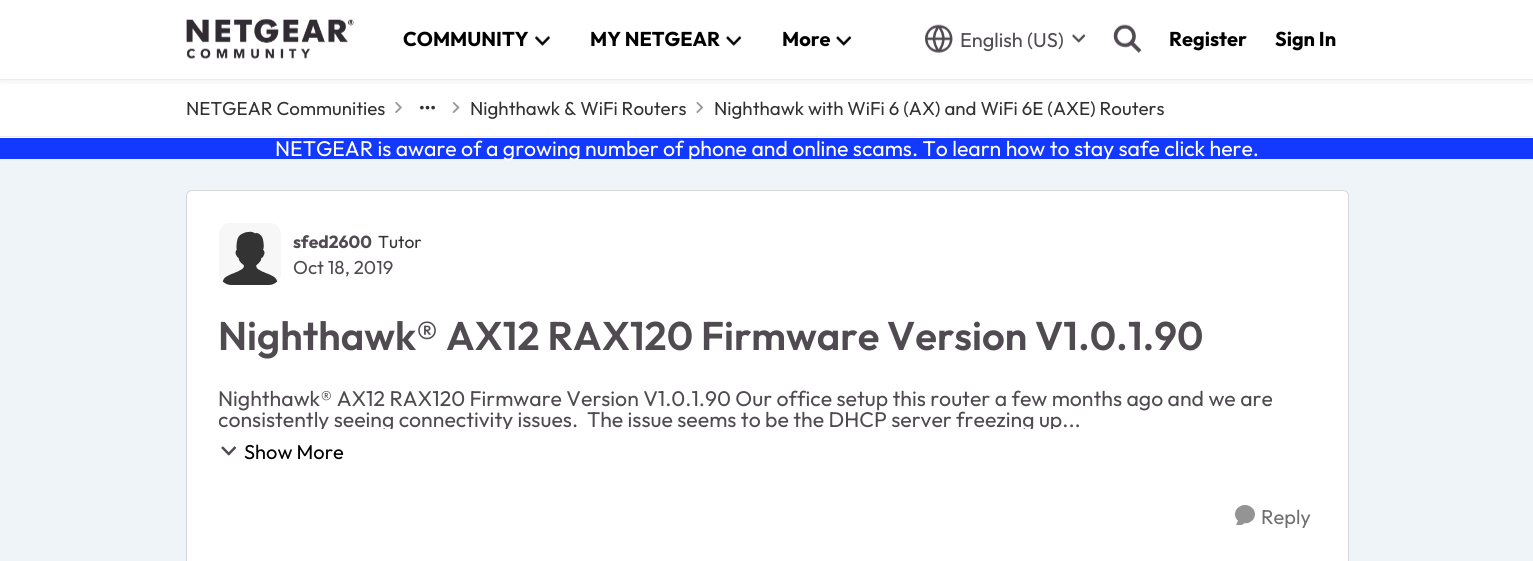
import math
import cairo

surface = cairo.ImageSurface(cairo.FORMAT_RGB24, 1533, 561)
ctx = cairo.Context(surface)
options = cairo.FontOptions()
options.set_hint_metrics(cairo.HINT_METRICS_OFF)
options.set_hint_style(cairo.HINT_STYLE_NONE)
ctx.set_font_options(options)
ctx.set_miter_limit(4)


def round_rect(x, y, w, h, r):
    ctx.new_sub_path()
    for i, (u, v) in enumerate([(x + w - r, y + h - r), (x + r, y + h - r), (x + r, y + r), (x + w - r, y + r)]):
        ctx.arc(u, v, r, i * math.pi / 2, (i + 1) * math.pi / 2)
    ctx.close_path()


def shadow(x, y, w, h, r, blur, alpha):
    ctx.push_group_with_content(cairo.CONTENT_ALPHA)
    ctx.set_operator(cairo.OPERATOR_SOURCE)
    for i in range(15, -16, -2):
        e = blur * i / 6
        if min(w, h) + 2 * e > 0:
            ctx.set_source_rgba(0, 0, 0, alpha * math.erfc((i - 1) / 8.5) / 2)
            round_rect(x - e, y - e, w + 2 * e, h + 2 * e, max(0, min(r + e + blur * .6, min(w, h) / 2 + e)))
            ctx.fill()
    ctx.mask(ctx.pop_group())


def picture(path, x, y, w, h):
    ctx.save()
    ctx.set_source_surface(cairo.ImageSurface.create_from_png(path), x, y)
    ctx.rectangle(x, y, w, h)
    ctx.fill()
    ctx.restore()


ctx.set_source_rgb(0.937, 0.957, 0.976)
ctx.paint()
ctx.set_source_rgb(1, 1, 1)
ctx.rectangle(0, 0, 1533, 138)
ctx.fill()
ctx.save()
ctx.rectangle(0, 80, 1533, 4)
ctx.clip()
ctx.set_source_rgb(0.2, 0.2, 0.2)
shadow(0, 3, 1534, 80, 0, 2.5, 0.06)
ctx.restore()
ctx.set_source_rgb(0.922, 0.922, 0.922)
ctx.rectangle(0, 79, 1533, 1)
ctx.fill()
picture("img1.png", 186, 19, 168, 40)
ctx.select_font_face("Outfit", cairo.FONT_SLANT_NORMAL, cairo.FONT_WEIGHT_BOLD)
ctx.set_font_size(20)
ctx.set_source_rgb(0, 0, 0)
ctx.move_to(403, 46)
ctx.show_text("COMMUNITY")
picture("img2.png", 535, 35, 15, 11)
ctx.move_to(590, 46)
ctx.show_text("MY NETGEAR")
picture("img3.png", 726, 35, 16, 11)
ctx.move_to(782, 46)
ctx.show_text("More")
picture("img3.png", 836, 35, 16, 11)
picture("img4.png", 925, 24, 28, 29)
ctx.select_font_face("Outfit")
ctx.set_source_rgb(0.314, 0.294, 0.318)
ctx.move_to(960, 47)
ctx.show_text("English (US)")
picture("img5.png", 1072, 33, 14, 10)
picture("img6.png", 1113, 24, 29, 29)
ctx.select_font_face("Outfit", cairo.FONT_SLANT_NORMAL, cairo.FONT_WEIGHT_BOLD)
ctx.set_source_rgb(0, 0, 0)
ctx.move_to(1169, 46)
ctx.show_text("Register")
ctx.move_to(1275, 46)
ctx.show_text("Sign In")
ctx.set_source_rgb(0.922, 0.922, 0.922)
ctx.rectangle(0, 136, 1533, 1)
ctx.fill()
ctx.select_font_face("Outfit")
ctx.set_font_size(18.75)
ctx.set_source_rgb(0.2, 0.2, 0.2)
ctx.move_to(186, 115)
ctx.show_text("NETGEAR Communities")
picture("img7.png", 395, 102, 7, 11)
picture("img8.png", 420, 105, 15, 5)
picture("img9.png", 452, 102, 8, 11)
ctx.move_to(470, 115)
ctx.show_text("Nighthawk & WiFi Routers")
picture("img10.png", 696, 102, 7, 11)
ctx.move_to(714, 115)
ctx.show_text("Nighthawk with WiFi 6 (AX) and WiFi 6E (AXE) Routers")
ctx.set_source_rgb(0.078, 0.224, 1)
ctx.rectangle(0, 138, 1533, 21)
ctx.fill()
ctx.set_font_size(21.25)
ctx.set_source_rgb(1, 1, 1)
ctx.move_to(275, 156)
ctx.show_text("NETGEAR is aware of a growing number of phone and online scams. To learn how to stay safe click here.")
round_rect(186, 190, 1163, 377, 6)
ctx.fill()
round_rect(186.5, 190.5, 1162, 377, 5.5)
ctx.set_source_rgba(0, 0, 0, 0.16)
ctx.set_line_width(1)
ctx.stroke()
picture("img11.png", 219, 223, 62, 62)
ctx.select_font_face("Outfit", cairo.FONT_SLANT_NORMAL, cairo.FONT_WEIGHT_BOLD)
ctx.set_font_size(17.5)
ctx.set_source_rgb(0.314, 0.294, 0.318)
ctx.move_to(293, 248)
ctx.show_text("sfed2600")
ctx.select_font_face("Outfit")
ctx.set_source_rgb(0.2, 0.2, 0.2)
ctx.move_to(378, 248)
ctx.show_text("Tutor")
ctx.set_font_size(18.75)
ctx.set_source_rgb(0.314, 0.294, 0.318)
ctx.move_to(293, 274)
ctx.show_text("Oct 18, 2019")
ctx.select_font_face("Outfit SemiBold")
ctx.set_font_size(40)
ctx.move_to(218, 350)
ctx.show_text("Nighthawk® AX12 RAX120 Firmware Version V1.0.1.90")
ctx.select_font_face("Outfit")
ctx.set_font_size(21.25)
ctx.move_to(218, 406)
ctx.show_text("Nighthawk® AX12 RAX120 Firmware Version V1.0.1.90 Our office setup this router a few months ago and we are")
ctx.save()
ctx.rectangle(219, 386, 1097, 43)
ctx.clip()
ctx.move_to(218, 427)
ctx.show_text("consistently seeing connectivity issues.  The issue seems to be the DHCP server freezing up...")
ctx.restore()
picture("img12.png", 221, 446, 16, 10)
ctx.set_font_size(20)
ctx.set_source_rgb(0, 0, 0)
ctx.move_to(244, 459)
ctx.show_text("Show More")
picture("img13.png", 1235, 505, 20, 20)
ctx.set_source_rgb(0.439, 0.439, 0.439)
ctx.move_to(1261, 524)
ctx.show_text("Reply")
surface.write_to_png("page.png")
